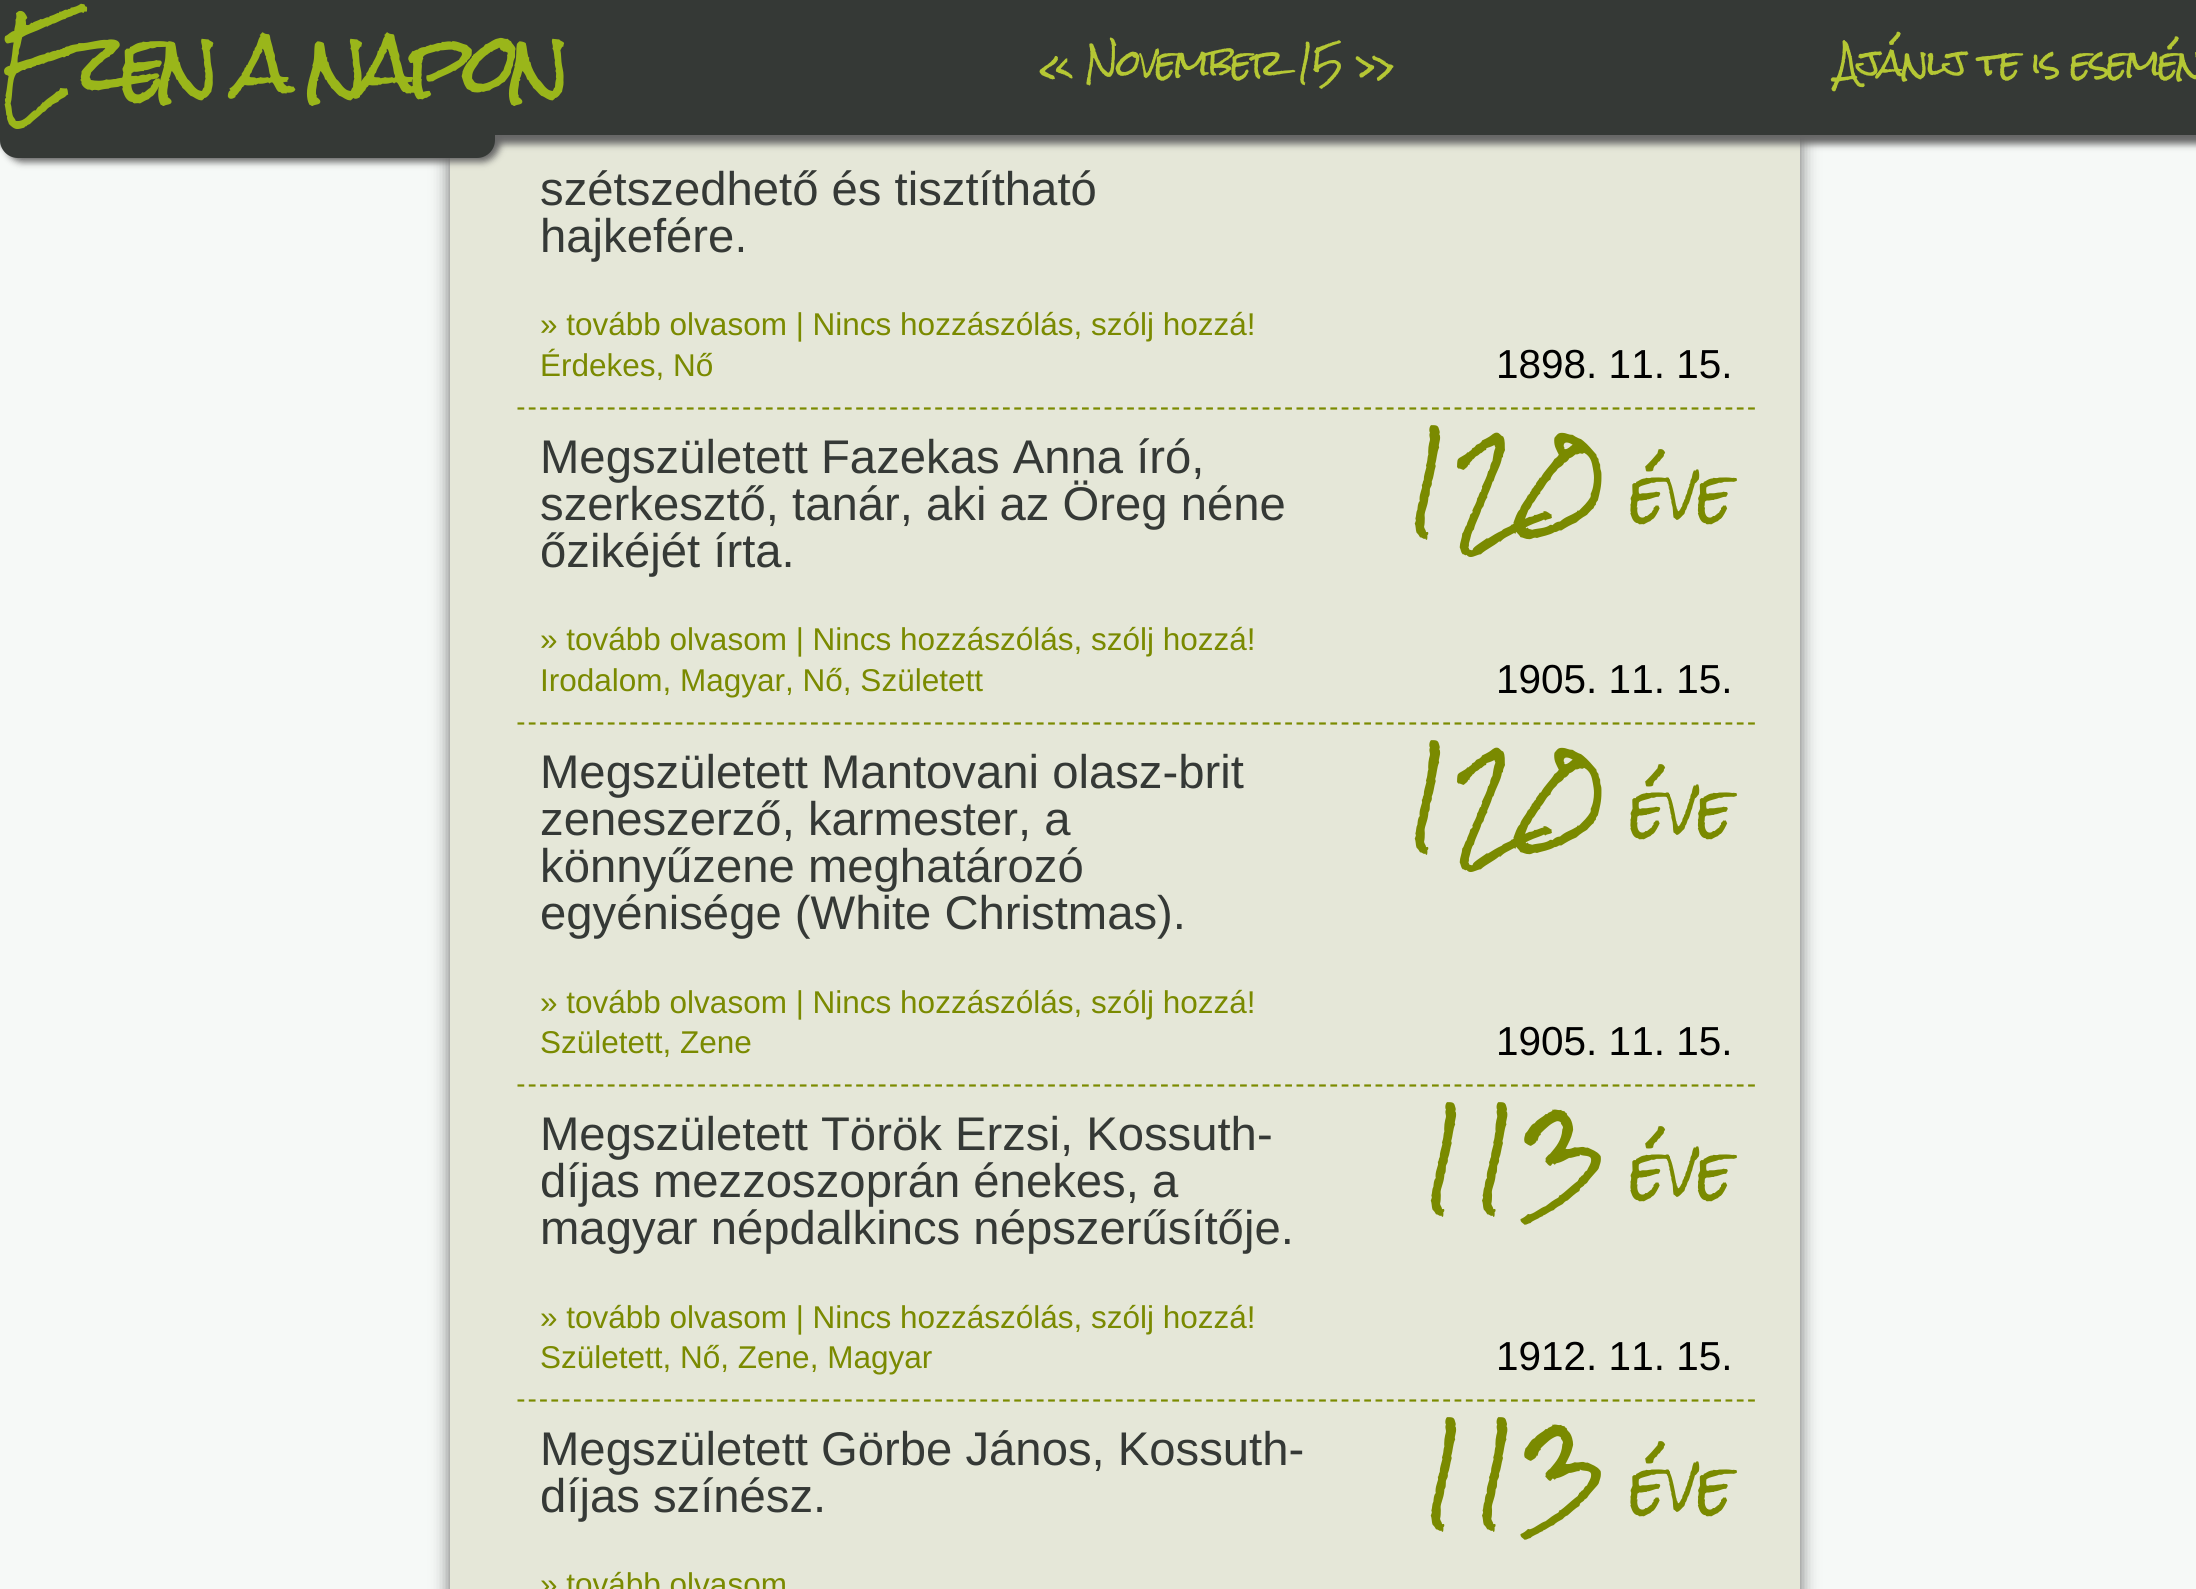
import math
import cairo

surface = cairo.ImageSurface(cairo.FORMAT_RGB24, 2196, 1589)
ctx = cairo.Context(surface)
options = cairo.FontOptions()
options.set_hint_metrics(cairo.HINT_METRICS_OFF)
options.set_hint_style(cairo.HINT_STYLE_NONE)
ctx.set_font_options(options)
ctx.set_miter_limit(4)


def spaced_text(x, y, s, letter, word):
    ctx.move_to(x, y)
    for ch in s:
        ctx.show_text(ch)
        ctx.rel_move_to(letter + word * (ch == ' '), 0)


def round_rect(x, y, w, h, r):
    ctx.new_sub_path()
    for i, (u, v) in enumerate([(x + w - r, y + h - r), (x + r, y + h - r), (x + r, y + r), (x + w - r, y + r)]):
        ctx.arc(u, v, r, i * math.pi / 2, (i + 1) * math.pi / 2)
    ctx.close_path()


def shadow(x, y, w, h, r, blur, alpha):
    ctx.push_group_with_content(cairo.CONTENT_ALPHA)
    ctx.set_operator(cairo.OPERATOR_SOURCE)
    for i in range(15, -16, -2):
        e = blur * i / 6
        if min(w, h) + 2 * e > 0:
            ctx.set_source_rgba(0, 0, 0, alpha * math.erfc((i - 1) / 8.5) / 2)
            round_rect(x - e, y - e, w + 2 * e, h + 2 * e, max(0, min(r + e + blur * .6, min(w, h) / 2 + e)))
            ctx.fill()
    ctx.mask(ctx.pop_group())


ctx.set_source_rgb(0.961, 0.973, 0.965)
ctx.paint()
ctx.set_source_rgb(0.4, 0.4, 0.4)
shadow(450, -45, 1350, 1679, 18, 9, 1)
ctx.set_source_rgb(0.898, 0.906, 0.847)
ctx.rectangle(450, 135, 1350, 1454)
ctx.fill()
ctx.set_source_rgb(0.4, 0.4, 0.4)
shadow(0, 9, 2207, 135, 0, 3.5, 1)
shadow(5, 54, 495, 108, 18, 3.5, 1)
ctx.set_source_rgb(0.208, 0.224, 0.212)
round_rect(0, 50, 495, 108, 18)
ctx.fill()
ctx.rectangle(0, 0, 2196, 135)
ctx.fill()
ctx.select_font_face("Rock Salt")
ctx.set_font_size(81)
ctx.set_source_rgb(0.604, 0.714, 0.102)
spaced_text(0, 95, "Ezen a napon", -9, 0)
ctx.set_font_size(36)
ctx.set_source_rgb(0.71, 0.78, 0.204)
spaced_text(1039, 77, "« November 15 »", -2.25, 0)
spaced_text(1836, 77, "Ajánlj te is esemén", -2.25, 0)
ctx.new_path()
ctx.move_to(517.5, 408.5)
ctx.line_to(1755, 408.5)
ctx.set_source_rgb(0.482, 0.545, 0)
ctx.set_line_width(2.2)
ctx.set_dash([6.75, 4.54])
ctx.stroke()
ctx.select_font_face("Liberation Sans")
ctx.set_font_size(47.25)
ctx.set_source_rgb(0.208, 0.224, 0.212)
ctx.move_to(540, 205)
ctx.show_text("szétszedhető és tisztítható")
ctx.move_to(540, 252)
ctx.show_text("hajkefére.")
ctx.set_font_size(31.5)
ctx.set_source_rgb(0.478, 0.541, 0)
ctx.move_to(540, 335)
ctx.show_text("» tovább olvasom | Nincs hozzászólás, szólj hozzá!")
ctx.move_to(540, 376)
ctx.show_text("Érdekes, Nő")
ctx.set_font_size(40.5)
ctx.set_source_rgb(0, 0, 0)
ctx.move_to(1496, 378)
ctx.show_text("1898. 11. 15.")
ctx.new_path()
ctx.move_to(517.5, 723.5)
ctx.line_to(1755, 723.5)
ctx.set_source_rgb(0.482, 0.545, 0)
ctx.stroke()
ctx.set_font_size(47.25)
ctx.set_source_rgb(0.208, 0.224, 0.212)
ctx.move_to(540, 473)
ctx.show_text("Megszületett Fazekas Anna író,")
ctx.move_to(540, 520)
ctx.show_text("szerkesztő, tanár, aki az Öreg néne")
ctx.move_to(540, 567)
ctx.show_text("őzikéjét írta.")
ctx.select_font_face("Rock Salt")
ctx.set_font_size(94.5)
ctx.set_source_rgb(0.478, 0.541, 0)
ctx.move_to(1402, 518)
ctx.show_text("120")
ctx.set_font_size(61)
ctx.move_to(1631, 518)
ctx.show_text("éve")
ctx.select_font_face("Liberation Sans")
ctx.set_font_size(31.5)
ctx.move_to(540, 650)
ctx.show_text("» tovább olvasom | Nincs hozzászólás, szólj hozzá!")
ctx.move_to(540, 691)
ctx.show_text("Irodalom, Magyar, Nő, Született")
ctx.set_font_size(40.5)
ctx.set_source_rgb(0, 0, 0)
ctx.move_to(1496, 693)
ctx.show_text("1905. 11. 15.")
ctx.new_path()
ctx.move_to(517.5, 1085.5)
ctx.line_to(1755, 1085.5)
ctx.set_source_rgb(0.482, 0.545, 0)
ctx.stroke()
ctx.set_font_size(47.25)
ctx.set_source_rgb(0.208, 0.224, 0.212)
ctx.move_to(540, 788)
ctx.show_text("Megszületett Mantovani olasz-brit")
ctx.move_to(540, 835)
ctx.show_text("zeneszerző, karmester, a")
ctx.move_to(540, 882)
ctx.show_text("könnyűzene meghatározó")
ctx.move_to(540, 929)
ctx.show_text("egyénisége (White Christmas).")
ctx.select_font_face("Rock Salt")
ctx.set_font_size(94.5)
ctx.set_source_rgb(0.478, 0.541, 0)
ctx.move_to(1402, 833)
ctx.show_text("120")
ctx.set_font_size(61)
ctx.move_to(1631, 833)
ctx.show_text("éve")
ctx.select_font_face("Liberation Sans")
ctx.set_font_size(31.5)
ctx.move_to(540, 1013)
ctx.show_text("» tovább olvasom | Nincs hozzászólás, szólj hozzá!")
ctx.move_to(540, 1053)
ctx.show_text("Született, Zene")
ctx.set_font_size(40.5)
ctx.set_source_rgb(0, 0, 0)
ctx.move_to(1496, 1055)
ctx.show_text("1905. 11. 15.")
ctx.new_path()
ctx.move_to(517.5, 1400.5)
ctx.line_to(1755, 1400.5)
ctx.set_source_rgb(0.482, 0.545, 0)
ctx.stroke()
ctx.set_font_size(47.25)
ctx.set_source_rgb(0.208, 0.224, 0.212)
ctx.move_to(540, 1150)
ctx.show_text("Megszületett Török Erzsi, Kossuth-")
ctx.move_to(540, 1197)
ctx.show_text("díjas mezzoszoprán énekes, a")
ctx.move_to(540, 1244)
ctx.show_text("magyar népdalkincs népszerűsítője.")
ctx.select_font_face("Rock Salt")
ctx.set_font_size(94.5)
ctx.set_source_rgb(0.478, 0.541, 0)
ctx.move_to(1418, 1195)
ctx.show_text("113")
ctx.set_font_size(61)
ctx.move_to(1631, 1195)
ctx.show_text("éve")
ctx.select_font_face("Liberation Sans")
ctx.set_font_size(31.5)
ctx.move_to(540, 1328)
ctx.show_text("» tovább olvasom | Nincs hozzászólás, szólj hozzá!")
ctx.move_to(540, 1368)
ctx.show_text("Született, Nő, Zene, Magyar")
ctx.set_font_size(40.5)
ctx.set_source_rgb(0, 0, 0)
ctx.move_to(1496, 1370)
ctx.show_text("1912. 11. 15.")
ctx.set_font_size(47.25)
ctx.set_source_rgb(0.208, 0.224, 0.212)
ctx.move_to(540, 1465)
ctx.show_text("Megszületett Görbe János, Kossuth-")
ctx.move_to(540, 1512)
ctx.show_text("díjas színész.")
ctx.select_font_face("Rock Salt")
ctx.set_font_size(94.5)
ctx.set_source_rgb(0.478, 0.541, 0)
ctx.move_to(1418, 1510)
ctx.show_text("113")
ctx.set_font_size(61)
ctx.move_to(1631, 1510)
ctx.show_text("éve")
ctx.select_font_face("Liberation Sans")
ctx.set_font_size(31.5)
ctx.move_to(540, 1595)
ctx.show_text("» tovább olvasom")
surface.write_to_png("page.png")
